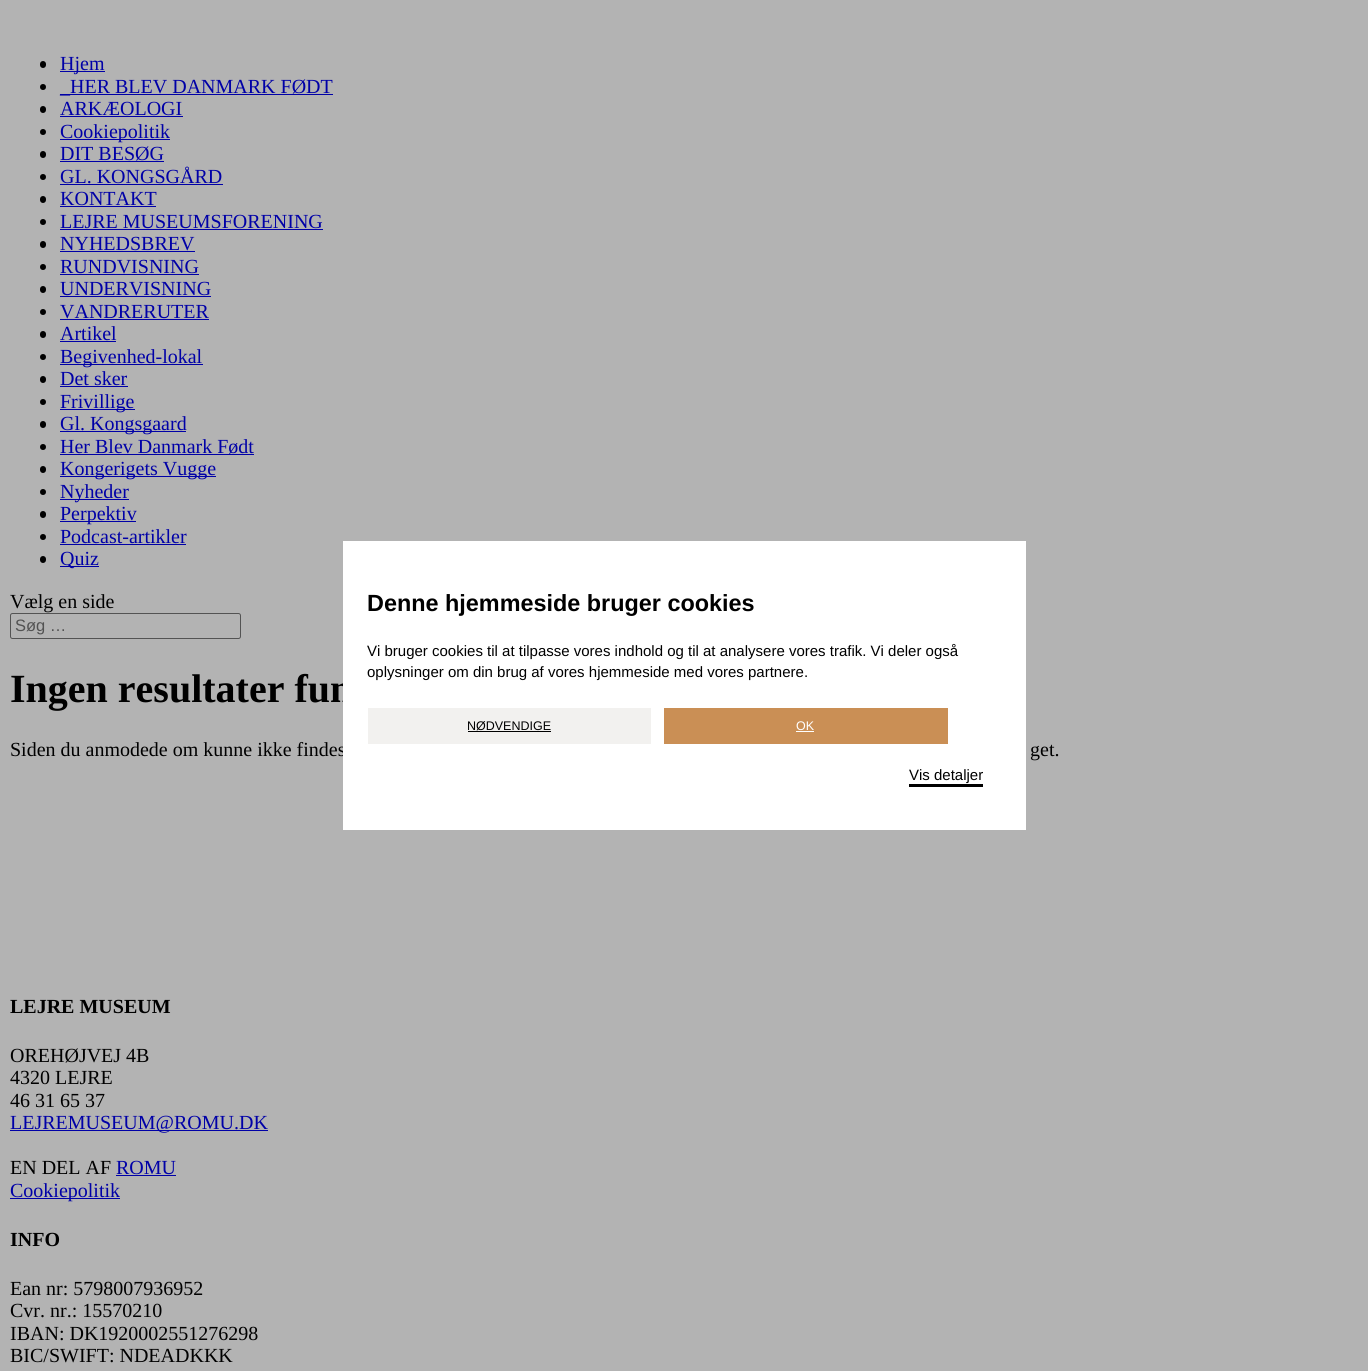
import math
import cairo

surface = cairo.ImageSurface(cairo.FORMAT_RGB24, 1368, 1371)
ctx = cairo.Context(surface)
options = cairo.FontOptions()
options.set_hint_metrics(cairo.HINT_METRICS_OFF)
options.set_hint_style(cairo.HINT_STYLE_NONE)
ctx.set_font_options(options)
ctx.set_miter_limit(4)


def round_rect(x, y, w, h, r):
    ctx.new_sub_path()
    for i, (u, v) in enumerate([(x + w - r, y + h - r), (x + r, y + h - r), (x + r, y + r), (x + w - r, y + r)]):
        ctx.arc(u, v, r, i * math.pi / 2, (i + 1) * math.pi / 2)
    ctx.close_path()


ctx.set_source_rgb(1, 1, 1)
ctx.paint()
ctx.set_source_rgb(0, 0, 0)
round_rect(40, 61, 6, 7, 3)
ctx.fill()
ctx.set_source_rgb(0, 0, 0.933)
ctx.rectangle(60, 71, 45, 1)
ctx.fill()
ctx.select_font_face("Liberation Serif")
ctx.set_font_size(20)
ctx.move_to(60, 70)
ctx.show_text("Hjem")
ctx.set_source_rgb(0, 0, 0)
ctx.new_path()
ctx.arc(43, 87, 3, 0, 2 * math.pi)
ctx.fill()
ctx.set_source_rgb(0, 0, 0.933)
ctx.rectangle(60, 94, 273, 1)
ctx.fill()
ctx.move_to(60, 93)
ctx.show_text("_HER BLEV DANMARK FØDT")
ctx.set_source_rgb(0, 0, 0)
round_rect(40, 106, 6, 7, 3)
ctx.fill()
ctx.set_source_rgb(0, 0, 0.933)
ctx.move_to(60, 115)
ctx.show_text("ARKÆOLOGI")
ctx.rectangle(60, 116, 123, 1)
ctx.fill()
ctx.set_source_rgb(0, 0, 0)
ctx.arc(43, 132, 3, 0, 2 * math.pi)
ctx.fill()
ctx.set_source_rgb(0, 0, 0.933)
ctx.rectangle(60, 139, 110, 1)
ctx.fill()
ctx.move_to(60, 138)
ctx.show_text("Cookiepolitik")
ctx.set_source_rgb(0, 0, 0)
round_rect(40, 151, 6, 7, 3)
ctx.fill()
ctx.set_source_rgb(0, 0, 0.933)
ctx.move_to(60, 160)
ctx.show_text("DIT BESØG")
ctx.rectangle(60, 161, 104, 1)
ctx.fill()
ctx.set_source_rgb(0, 0, 0)
ctx.arc(43, 177, 3, 0, 2 * math.pi)
ctx.fill()
ctx.set_source_rgb(0, 0, 0.933)
ctx.move_to(60, 183)
ctx.show_text("GL. KONGSGÅRD")
ctx.rectangle(60, 184, 163, 1)
ctx.fill()
ctx.set_source_rgb(0, 0, 0)
round_rect(40, 196, 6, 7, 3)
ctx.fill()
ctx.set_source_rgb(0, 0, 0.933)
ctx.move_to(60, 205)
ctx.show_text("KONTAKT")
ctx.rectangle(60, 206, 96, 1)
ctx.fill()
ctx.set_source_rgb(0, 0, 0)
ctx.arc(43, 222, 3, 0, 2 * math.pi)
ctx.fill()
ctx.set_source_rgb(0, 0, 0.933)
ctx.move_to(60, 228)
ctx.show_text("LEJRE MUSEUMSFORENING")
ctx.rectangle(60, 229, 263, 1)
ctx.fill()
ctx.set_source_rgb(0, 0, 0)
round_rect(40, 241, 6, 7, 3)
ctx.fill()
ctx.set_source_rgb(0, 0, 0.933)
ctx.move_to(60, 250)
ctx.show_text("NYHEDSBREV")
ctx.rectangle(60, 251, 135, 1)
ctx.fill()
ctx.set_source_rgb(0, 0, 0)
ctx.arc(43, 267, 3, 0, 2 * math.pi)
ctx.fill()
ctx.set_source_rgb(0, 0, 0.933)
ctx.move_to(60, 273)
ctx.show_text("RUNDVISNING")
ctx.rectangle(60, 274, 139, 1)
ctx.fill()
ctx.set_source_rgb(0, 0, 0)
round_rect(40, 286, 6, 7, 3)
ctx.fill()
ctx.set_source_rgb(0, 0, 0.933)
ctx.move_to(60, 295)
ctx.show_text("UNDERVISNING")
ctx.rectangle(60, 296, 151, 1)
ctx.fill()
ctx.set_source_rgb(0, 0, 0)
ctx.arc(43, 312, 3, 0, 2 * math.pi)
ctx.fill()
ctx.set_source_rgb(0, 0, 0.933)
ctx.move_to(60, 318)
ctx.show_text("VANDRERUTER")
ctx.rectangle(60, 319, 149, 1)
ctx.fill()
ctx.set_source_rgb(0, 0, 0)
round_rect(40, 331, 6, 7, 3)
ctx.fill()
ctx.set_source_rgb(0, 0, 0.933)
ctx.move_to(60, 340)
ctx.show_text("Artikel")
ctx.rectangle(60, 341, 56, 1)
ctx.fill()
ctx.set_source_rgb(0, 0, 0)
ctx.arc(43, 357, 3, 0, 2 * math.pi)
ctx.fill()
ctx.set_source_rgb(0, 0, 0.933)
ctx.rectangle(60, 364, 143, 1)
ctx.fill()
ctx.move_to(60, 363)
ctx.show_text("Begivenhed-lokal")
ctx.set_source_rgb(0, 0, 0)
round_rect(40, 376, 6, 7, 3)
ctx.fill()
ctx.set_source_rgb(0, 0, 0.933)
ctx.move_to(60, 385)
ctx.show_text("Det sker")
ctx.rectangle(60, 386, 68, 1)
ctx.fill()
ctx.set_source_rgb(0, 0, 0)
ctx.arc(43, 402, 3, 0, 2 * math.pi)
ctx.fill()
ctx.set_source_rgb(0, 0, 0.933)
ctx.rectangle(60, 409, 75, 1)
ctx.fill()
ctx.move_to(60, 408)
ctx.show_text("Frivillige")
ctx.set_source_rgb(0, 0, 0)
round_rect(40, 421, 6, 7, 3)
ctx.fill()
ctx.set_source_rgb(0, 0, 0.933)
ctx.rectangle(60, 431, 126, 1)
ctx.fill()
ctx.move_to(60, 430)
ctx.show_text("Gl. Kongsgaard")
ctx.set_source_rgb(0, 0, 0)
ctx.new_path()
ctx.arc(43, 447, 3, 0, 2 * math.pi)
ctx.fill()
ctx.set_source_rgb(0, 0, 0.933)
ctx.move_to(60, 453)
ctx.show_text("Her Blev Danmark Født")
ctx.rectangle(60, 454, 194, 1)
ctx.fill()
ctx.set_source_rgb(0, 0, 0)
round_rect(40, 466, 6, 7, 3)
ctx.fill()
ctx.set_source_rgb(0, 0, 0.933)
ctx.rectangle(60, 476, 156, 1)
ctx.fill()
ctx.move_to(60, 475)
ctx.show_text("Kongerigets Vugge")
ctx.set_source_rgb(0, 0, 0)
ctx.new_path()
ctx.arc(43, 492, 3, 0, 2 * math.pi)
ctx.fill()
ctx.set_source_rgb(0, 0, 0.933)
ctx.rectangle(60, 499, 69, 1)
ctx.fill()
ctx.move_to(60, 498)
ctx.show_text("Nyheder")
ctx.set_source_rgb(0, 0, 0)
round_rect(40, 511, 6, 7, 3)
ctx.fill()
ctx.set_source_rgb(0, 0, 0.933)
ctx.rectangle(60, 521, 76, 1)
ctx.fill()
ctx.move_to(60, 520)
ctx.show_text("Perpektiv")
ctx.set_source_rgb(0, 0, 0)
ctx.new_path()
ctx.arc(43, 537, 3, 0, 2 * math.pi)
ctx.fill()
ctx.set_source_rgb(0, 0, 0.933)
ctx.move_to(60, 543)
ctx.show_text("Podcast-artikler")
ctx.rectangle(60, 544, 126, 1)
ctx.fill()
ctx.set_source_rgb(0, 0, 0)
round_rect(40, 556, 6, 7, 3)
ctx.fill()
ctx.set_source_rgb(0, 0, 0.933)
ctx.rectangle(60, 566, 39, 1)
ctx.fill()
ctx.move_to(60, 565)
ctx.show_text("Quiz")
ctx.set_source_rgb(0, 0, 0)
ctx.move_to(10, 608)
ctx.show_text("Vælg en side")
round_rect(10.5, 613.5, 230, 25, 2)
ctx.set_source_rgb(0.463, 0.463, 0.463)
ctx.set_line_width(1)
ctx.stroke()
ctx.select_font_face("Liberation Sans")
ctx.set_font_size(16.5)
ctx.set_source_rgb(0.459, 0.459, 0.459)
ctx.move_to(15, 631)
ctx.show_text("Søg …")
ctx.select_font_face("Liberation Serif", cairo.FONT_SLANT_NORMAL, cairo.FONT_WEIGHT_BOLD)
ctx.set_font_size(40)
ctx.set_source_rgb(0, 0, 0)
ctx.move_to(10, 702)
ctx.show_text("Ingen resultater fun")
ctx.select_font_face("Liberation Serif")
ctx.set_font_size(20)
ctx.move_to(10, 756)
ctx.show_text("Siden du anmodede om kunne ikke findes")
ctx.move_to(1030, 756)
ctx.show_text("get.")
ctx.select_font_face("Liberation Serif", cairo.FONT_SLANT_NORMAL, cairo.FONT_WEIGHT_BOLD)
ctx.move_to(10, 1013)
ctx.show_text("LEJRE MUSEUM")
ctx.select_font_face("Liberation Serif")
ctx.move_to(10, 1062)
ctx.show_text("OREHØJVEJ 4B")
ctx.move_to(10, 1084)
ctx.show_text("4320 LEJRE")
ctx.move_to(10, 1107)
ctx.show_text("46 31 65 37")
ctx.set_source_rgb(0, 0, 0.933)
ctx.rectangle(10, 1130, 258, 1)
ctx.fill()
ctx.move_to(10, 1129)
ctx.show_text("LEJREMUSEUM@ROMU.DK")
ctx.set_source_rgb(0, 0, 0)
ctx.move_to(10, 1174)
ctx.show_text("EN DEL AF")
ctx.set_source_rgb(0, 0, 0.933)
ctx.move_to(116, 1174)
ctx.show_text("ROMU")
ctx.rectangle(116, 1175, 60, 1)
ctx.fill()
ctx.rectangle(10, 1198, 110, 1)
ctx.fill()
ctx.move_to(10, 1197)
ctx.show_text("Cookiepolitik")
ctx.select_font_face("Liberation Serif", cairo.FONT_SLANT_NORMAL, cairo.FONT_WEIGHT_BOLD)
ctx.set_source_rgb(0, 0, 0)
ctx.move_to(10, 1246)
ctx.show_text("INFO")
ctx.select_font_face("Liberation Serif")
ctx.move_to(10, 1295)
ctx.show_text("Ean nr: 5798007936952")
ctx.move_to(10, 1317)
ctx.show_text("Cvr. nr.: 15570210")
ctx.move_to(10, 1340)
ctx.show_text("IBAN: DK1920002551276298")
ctx.move_to(10, 1362)
ctx.show_text("BIC/SWIFT: NDEADKKK")
ctx.rectangle(-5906.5, -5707.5, 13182, 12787)
ctx.set_source_rgba(0, 0, 0, 0.3)
ctx.set_line_width(12499)
ctx.stroke()
ctx.set_source_rgb(1, 1, 1)
ctx.rectangle(343, 541, 683, 215)
ctx.fill()
ctx.select_font_face("Liberation Sans", cairo.FONT_SLANT_NORMAL, cairo.FONT_WEIGHT_BOLD)
ctx.set_font_size(23.4)
ctx.set_source_rgb(0, 0, 0)
ctx.move_to(367, 611)
ctx.show_text("Denne hjemmeside bruger cookies")
ctx.select_font_face("Liberation Sans")
ctx.set_font_size(15)
ctx.move_to(367, 656)
ctx.show_text("Vi bruger cookies til at tilpasse vores indhold og til at analysere vores trafik. Vi deler også")
ctx.move_to(367, 677)
ctx.show_text("oplysninger om din brug af vores hjemmeside med vores partnere.")
ctx.set_source_rgb(0.949, 0.945, 0.937)
ctx.rectangle(368, 708, 283, 36)
ctx.fill()
ctx.set_font_size(12.5)
ctx.set_source_rgb(0, 0, 0)
ctx.move_to(467, 730)
ctx.show_text("NØDVENDIGE")
ctx.rectangle(468, 731, 83, 1)
ctx.fill()
ctx.set_source_rgb(0.792, 0.561, 0.333)
ctx.rectangle(664, 708, 284, 36)
ctx.fill()
ctx.set_source_rgb(1, 1, 1)
ctx.move_to(796, 730)
ctx.show_text("OK")
ctx.rectangle(796, 731, 18, 1)
ctx.fill()
ctx.set_source_rgb(0, 0, 0)
ctx.rectangle(909, 784, 74, 3)
ctx.fill()
ctx.set_font_size(15)
ctx.move_to(909, 780)
ctx.show_text("Vis detaljer")
surface.write_to_png("page.png")
